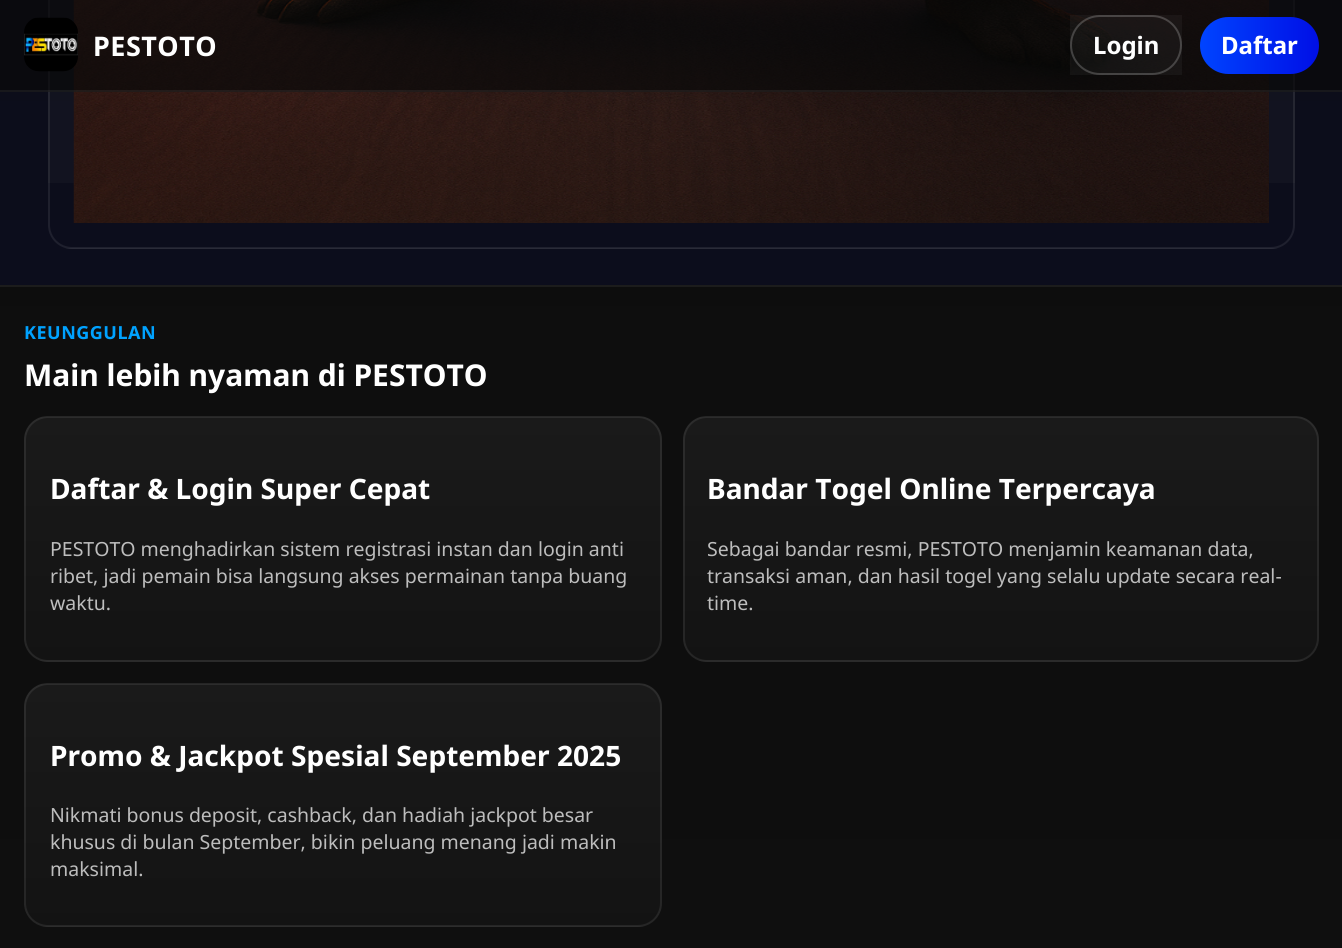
import math
import cairo

surface = cairo.ImageSurface(cairo.FORMAT_RGB24, 1342, 948)
ctx = cairo.Context(surface)
options = cairo.FontOptions()
options.set_hint_metrics(cairo.HINT_METRICS_OFF)
options.set_hint_style(cairo.HINT_STYLE_NONE)
ctx.set_font_options(options)
ctx.set_miter_limit(4)


def spaced_text(x, y, s, letter, word):
    ctx.move_to(x, y)
    for ch in s:
        ctx.show_text(ch)
        ctx.rel_move_to(letter + word * (ch == ' '), 0)


def round_rect(x, y, w, h, r):
    ctx.new_sub_path()
    for i, (u, v) in enumerate([(x + w - r, y + h - r), (x + r, y + h - r), (x + r, y + r), (x + w - r, y + r)]):
        ctx.arc(u, v, r, i * math.pi / 2, (i + 1) * math.pi / 2)
    ctx.close_path()


def picture(path, x, y, w, h):
    ctx.save()
    ctx.set_source_surface(cairo.ImageSurface.create_from_png(path), x, y)
    ctx.rectangle(x, y, w, h)
    ctx.fill()
    ctx.restore()


ctx.set_source_rgb(1, 1, 1)
ctx.paint()
gradient = cairo.LinearGradient(671, -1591, 671, 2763)
gradient.add_color_stop_rgba(0, 0.039, 0.039, 0.039, 1)
gradient.add_color_stop_rgba(1, 0.071, 0.071, 0.071, 1)
ctx.set_source(gradient)
ctx.rectangle(0, 287, 1342, 661)
ctx.fill()
gradient = cairo.LinearGradient(671, -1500, 671, 285)
gradient.add_color_stop_rgba(0, 0.051, 0.051, 0.051, 1)
gradient.add_color_stop_rgba(1, 0.047, 0.051, 0.11, 1)
ctx.set_source(gradient)
ctx.rectangle(0, 0, 1342, 285)
ctx.fill()
ctx.set_source_rgb(0.11, 0.11, 0.11)
ctx.rectangle(0, 285, 1342, 2)
ctx.fill()
gradient = cairo.LinearGradient(671, -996, 671, 248)
gradient.add_color_stop_rgba(0, 1, 1, 1, 0.05)
gradient.add_color_stop_rgba(1, 1, 1, 1, 0.02)
ctx.set_source(gradient)
ctx.rectangle(48, 0, 1247, 183)
ctx.fill()
ctx.save()
round_rect(48, -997, 1247, 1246, 24)
ctx.clip()
gradient = cairo.LinearGradient(671, 247, 671, 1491)
gradient.add_color_stop_rgba(0, 0.094, 0.098, 0.153, 1)
gradient.add_color_stop_rgba(1, 0.067, 0.071, 0.129, 1)
ctx.set_source(gradient)
ctx.rectangle(65, 248, 1213, 1)
ctx.fill()
ctx.restore()
round_rect(49, -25, 1245, 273, 23)
ctx.set_source_rgba(1, 1, 1, 0.08)
ctx.stroke()
picture("img1.png", 73, 0, 1196, 223)
ctx.set_source_rgba(0.039, 0.039, 0.039, 0.7)
ctx.rectangle(0, 0, 1342, 92)
ctx.fill()
ctx.set_source_rgba(1, 1, 1, 0.06)
ctx.rectangle(0, 90, 1342, 2)
ctx.fill()
picture("img2.png", 24, 17, 54, 55)
ctx.select_font_face("Noto Sans", cairo.FONT_SLANT_NORMAL, cairo.FONT_WEIGHT_BOLD)
ctx.set_font_size(27)
ctx.set_source_rgb(1, 1, 1)
spaced_text(93, 56, "PESTOTO", 0.5, 0)
ctx.set_source_rgba(1, 1, 1, 0.04)
ctx.rectangle(1070, 15, 112, 60)
ctx.fill()
round_rect(1071, 16, 110, 58, 29)
ctx.set_source_rgba(1, 1, 1, 0.2)
ctx.stroke()
ctx.set_font_size(24)
ctx.set_source_rgb(1, 1, 1)
ctx.move_to(1093, 54)
ctx.show_text("Login")
gradient = cairo.LinearGradient(1200, 45, 1319, 45)
gradient.add_color_stop_rgba(0, 0, 0.267, 1, 1)
gradient.add_color_stop_rgba(1, 0, 0.059, 0.902, 1)
ctx.set_source(gradient)
round_rect(1200, 17, 119, 57, 28.5)
ctx.fill()
ctx.set_source_rgb(1, 1, 1)
ctx.move_to(1221, 54)
ctx.show_text("Daftar")
ctx.set_font_size(18)
ctx.set_source_rgb(0, 0.635, 1)
spaced_text(24, 339, "KEUNGGULAN", 0.5, 0)
ctx.set_font_size(30)
ctx.set_source_rgb(1, 1, 1)
ctx.move_to(24, 386)
ctx.show_text("Main lebih nyaman di PESTOTO")
ctx.save()
round_rect(24, 416, 638, 246, 24)
ctx.clip()
gradient = cairo.LinearGradient(343, 174, 343, 417)
gradient.add_color_stop_rgba(0, 0.102, 0.102, 0.102, 1)
gradient.add_color_stop_rgba(1, 0.075, 0.075, 0.075, 1)
ctx.set_source(gradient)
ctx.rectangle(41, 416, 604, 1)
ctx.fill()
gradient = cairo.LinearGradient(343, 417, 343, 660)
gradient.add_color_stop_rgba(0, 0.102, 0.102, 0.102, 1)
gradient.add_color_stop_rgba(1, 0.075, 0.075, 0.075, 1)
ctx.set_source(gradient)
ctx.rectangle(24, 417, 638, 243)
ctx.fill()
gradient = cairo.LinearGradient(343, 660, 343, 903)
gradient.add_color_stop_rgba(0, 0.098, 0.098, 0.098, 1)
gradient.add_color_stop_rgba(1, 0.071, 0.071, 0.071, 1)
ctx.set_source(gradient)
ctx.rectangle(38, 660, 610, 2)
ctx.fill()
ctx.restore()
round_rect(25, 417, 636, 244, 23)
ctx.set_source_rgba(1, 1, 1, 0.08)
ctx.stroke()
ctx.set_font_size(28.1)
ctx.set_source_rgb(1, 1, 1)
ctx.move_to(50, 499)
ctx.show_text("Daftar & Login Super Cepat")
ctx.select_font_face("Noto Sans")
ctx.set_font_size(19.5)
ctx.set_source_rgb(0.741, 0.741, 0.741)
ctx.move_to(50, 556)
ctx.show_text("PESTOTO menghadirkan sistem registrasi instan dan login anti")
ctx.move_to(50, 583)
ctx.show_text("ribet, jadi pemain bisa langsung akses permainan tanpa buang")
ctx.move_to(50, 610)
ctx.show_text("waktu.")
ctx.save()
round_rect(683, 416, 636, 246, 24)
ctx.clip()
gradient = cairo.LinearGradient(1001, 174, 1001, 417)
gradient.add_color_stop_rgba(0, 0.102, 0.102, 0.102, 1)
gradient.add_color_stop_rgba(1, 0.075, 0.075, 0.075, 1)
ctx.set_source(gradient)
ctx.rectangle(700, 416, 602, 1)
ctx.fill()
gradient = cairo.LinearGradient(1001, 417, 1001, 660)
gradient.add_color_stop_rgba(0, 0.102, 0.102, 0.102, 1)
gradient.add_color_stop_rgba(1, 0.075, 0.075, 0.075, 1)
ctx.set_source(gradient)
ctx.rectangle(683, 417, 636, 243)
ctx.fill()
gradient = cairo.LinearGradient(1001, 660, 1001, 903)
gradient.add_color_stop_rgba(0, 0.098, 0.098, 0.098, 1)
gradient.add_color_stop_rgba(1, 0.071, 0.071, 0.071, 1)
ctx.set_source(gradient)
ctx.rectangle(697, 660, 608, 2)
ctx.fill()
ctx.restore()
round_rect(684, 417, 634, 244, 23)
ctx.set_source_rgba(1, 1, 1, 0.08)
ctx.stroke()
ctx.select_font_face("Noto Sans", cairo.FONT_SLANT_NORMAL, cairo.FONT_WEIGHT_BOLD)
ctx.set_font_size(28.1)
ctx.set_source_rgb(1, 1, 1)
ctx.move_to(707, 499)
ctx.show_text("Bandar Togel Online Terpercaya")
ctx.select_font_face("Noto Sans")
ctx.set_font_size(19.5)
ctx.set_source_rgb(0.741, 0.741, 0.741)
ctx.move_to(707, 556)
ctx.show_text("Sebagai bandar resmi, PESTOTO menjamin keamanan data,")
ctx.move_to(707, 583)
ctx.show_text("transaksi aman, dan hasil togel yang selalu update secara real-")
ctx.move_to(707, 610)
ctx.show_text("time.")
ctx.save()
round_rect(24, 683, 638, 244, 24)
ctx.clip()
gradient = cairo.LinearGradient(343, 443, 343, 684)
gradient.add_color_stop_rgba(0, 0.098, 0.098, 0.098, 1)
gradient.add_color_stop_rgba(1, 0.071, 0.071, 0.071, 1)
ctx.set_source(gradient)
ctx.rectangle(41, 683, 604, 1)
ctx.fill()
gradient = cairo.LinearGradient(343, 684, 343, 926)
gradient.add_color_stop_rgba(0, 0.102, 0.102, 0.102, 1)
gradient.add_color_stop_rgba(1, 0.075, 0.075, 0.075, 1)
ctx.set_source(gradient)
ctx.rectangle(24, 684, 638, 242)
ctx.fill()
gradient = cairo.LinearGradient(343, 926, 343, 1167)
gradient.add_color_stop_rgba(0, 0.106, 0.106, 0.106, 1)
gradient.add_color_stop_rgba(1, 0.078, 0.078, 0.078, 1)
ctx.set_source(gradient)
ctx.rectangle(41, 926, 604, 1)
ctx.fill()
ctx.restore()
round_rect(25, 684, 636, 242, 23)
ctx.set_source_rgba(1, 1, 1, 0.08)
ctx.stroke()
ctx.select_font_face("Noto Sans", cairo.FONT_SLANT_NORMAL, cairo.FONT_WEIGHT_BOLD)
ctx.set_font_size(28.1)
ctx.set_source_rgb(1, 1, 1)
ctx.move_to(50, 766)
ctx.show_text("Promo & Jackpot Spesial September 2025")
ctx.select_font_face("Noto Sans")
ctx.set_font_size(19.5)
ctx.set_source_rgb(0.741, 0.741, 0.741)
ctx.move_to(50, 822)
ctx.show_text("Nikmati bonus deposit, cashback, dan hadiah jackpot besar")
ctx.move_to(50, 849)
ctx.show_text("khusus di bulan September, bikin peluang menang jadi makin")
ctx.move_to(50, 876)
ctx.show_text("maksimal.")
surface.write_to_png("page.png")
